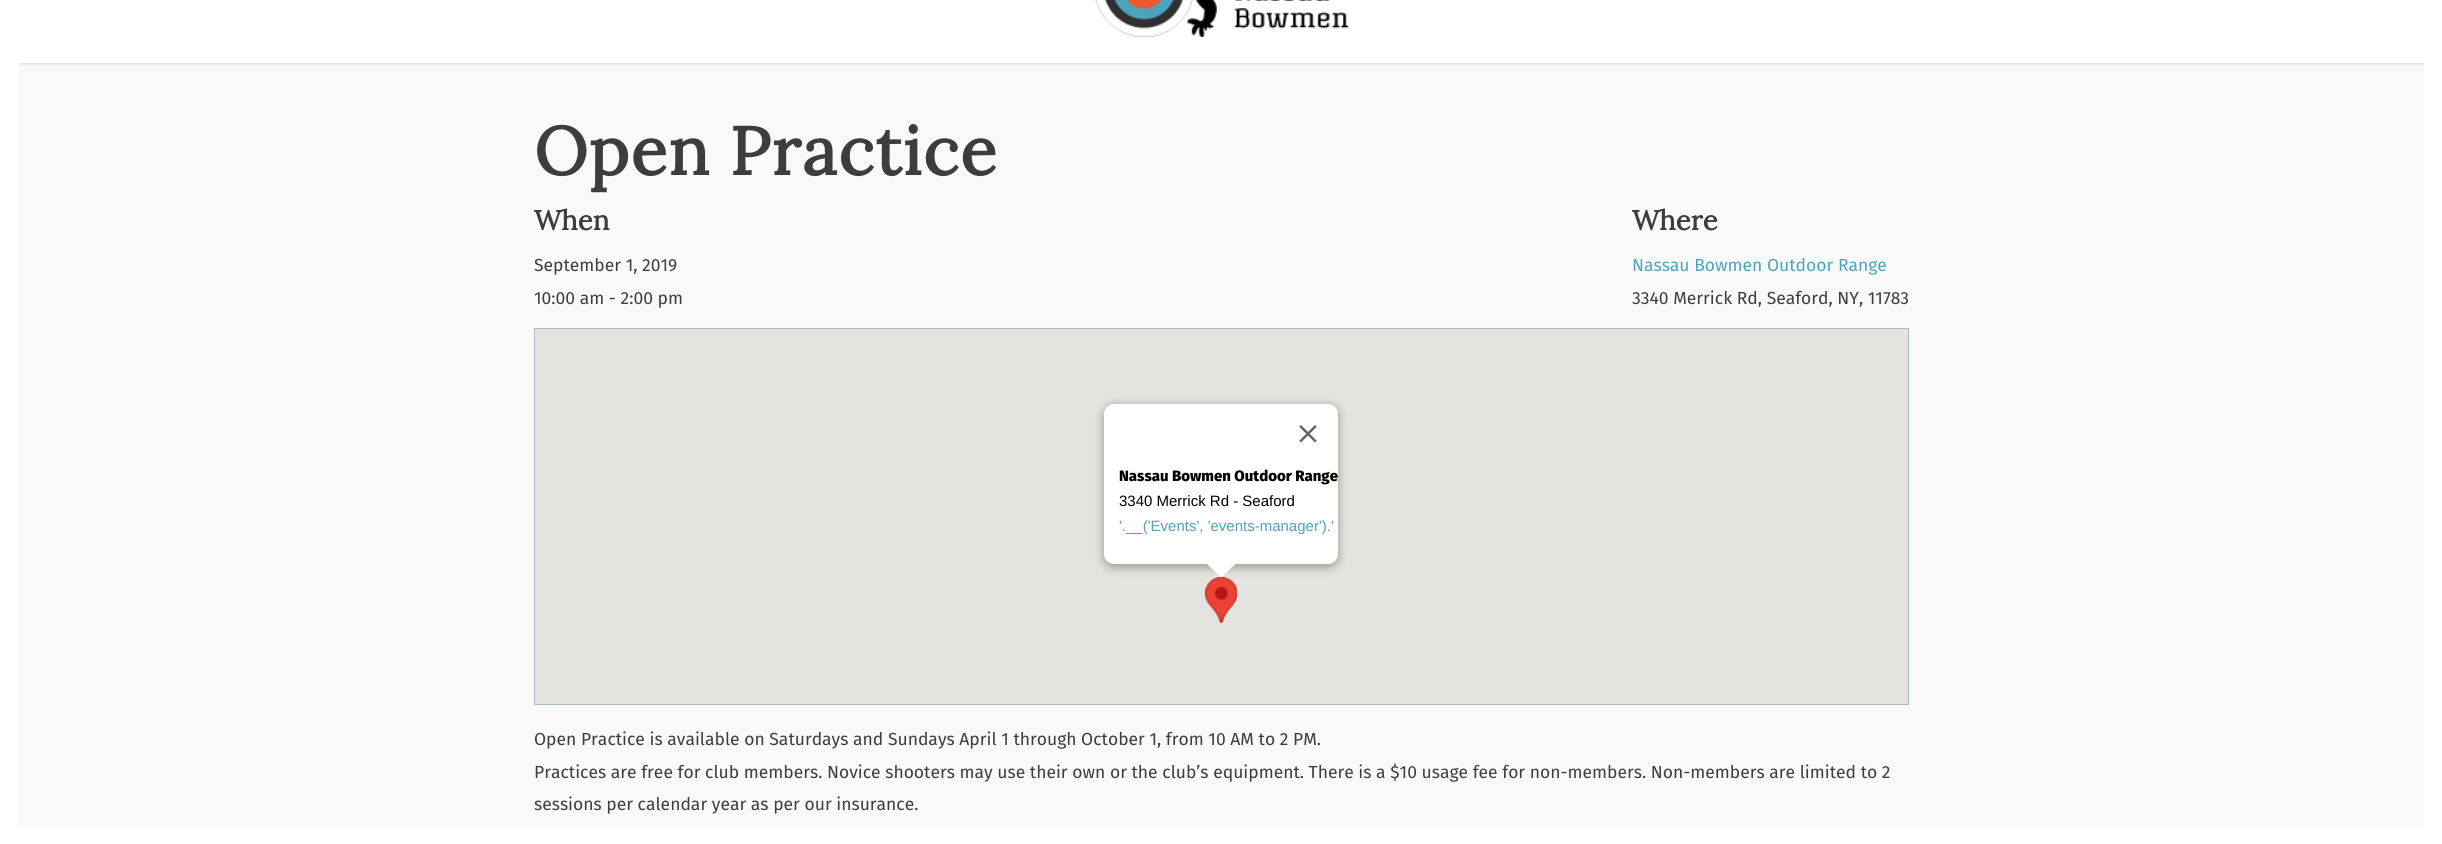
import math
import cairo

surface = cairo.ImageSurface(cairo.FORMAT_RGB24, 2442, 844)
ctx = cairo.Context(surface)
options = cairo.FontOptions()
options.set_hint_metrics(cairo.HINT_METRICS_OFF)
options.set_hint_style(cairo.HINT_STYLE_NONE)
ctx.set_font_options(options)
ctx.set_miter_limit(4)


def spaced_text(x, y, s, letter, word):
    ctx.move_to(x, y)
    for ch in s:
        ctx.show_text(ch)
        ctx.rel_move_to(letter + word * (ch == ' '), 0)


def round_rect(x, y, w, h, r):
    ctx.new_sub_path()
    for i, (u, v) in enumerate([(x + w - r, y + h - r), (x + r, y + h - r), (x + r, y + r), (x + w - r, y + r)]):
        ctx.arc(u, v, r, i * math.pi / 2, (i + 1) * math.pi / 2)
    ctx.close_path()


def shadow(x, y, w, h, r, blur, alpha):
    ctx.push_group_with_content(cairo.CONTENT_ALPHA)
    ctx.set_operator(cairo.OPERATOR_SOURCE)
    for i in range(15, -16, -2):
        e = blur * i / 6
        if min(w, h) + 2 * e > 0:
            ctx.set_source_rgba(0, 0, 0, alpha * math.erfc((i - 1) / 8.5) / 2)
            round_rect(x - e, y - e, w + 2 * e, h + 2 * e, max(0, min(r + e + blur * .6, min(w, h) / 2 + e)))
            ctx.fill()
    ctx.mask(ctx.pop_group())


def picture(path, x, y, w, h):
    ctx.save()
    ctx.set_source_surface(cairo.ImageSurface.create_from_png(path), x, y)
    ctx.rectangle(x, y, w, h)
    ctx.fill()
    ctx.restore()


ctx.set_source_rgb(0.973, 0.973, 0.973)
ctx.paint()
ctx.set_source_rgb(0, 0, 0)
shadow(0, -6, 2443, 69, 0, 2, 0.22)
ctx.set_source_rgb(1, 1, 1)
ctx.rectangle(19, 0, 2405, 63)
ctx.fill()
picture("img1.png", 1095, 0, 254, 37)
ctx.rectangle(0, 0, 19, 844)
ctx.fill()
ctx.select_font_face("Lora", cairo.FONT_SLANT_NORMAL, cairo.FONT_WEIGHT_BOLD)
ctx.set_font_size(67.5)
ctx.set_source_rgb(0.239, 0.239, 0.239)
spaced_text(534, 175, "Open Practice", 1.25, 0)
ctx.set_font_size(27.5)
ctx.move_to(534, 230)
ctx.show_text("When")
ctx.select_font_face("Fira Sans")
ctx.set_font_size(17.5)
ctx.move_to(534, 271)
ctx.show_text("September 1, 2019")
ctx.move_to(534, 304)
ctx.show_text("10:00 am - 2:00 pm")
ctx.select_font_face("Lora", cairo.FONT_SLANT_NORMAL, cairo.FONT_WEIGHT_BOLD)
ctx.set_font_size(27.5)
ctx.move_to(1632, 230)
ctx.show_text("Where")
ctx.select_font_face("Fira Sans")
ctx.set_font_size(17.5)
ctx.set_source_rgb(0.302, 0.643, 0.749)
ctx.move_to(1632, 271)
ctx.show_text("Nassau Bowmen Outdoor Range")
ctx.set_source_rgb(0.239, 0.239, 0.239)
ctx.move_to(1632, 304)
ctx.show_text("3340 Merrick Rd, Seaford, NY, 11783")
ctx.rectangle(534.5, 328.5, 1374, 376)
ctx.set_source_rgb(0.671, 0.729, 0.792)
ctx.set_line_width(1)
ctx.stroke()
ctx.set_source_rgb(0.898, 0.89, 0.875)
ctx.rectangle(535, 329, 1373, 375)
ctx.fill()
picture("img3.png", 1205, 577, 32, 46)
ctx.set_source_rgb(0, 0, 0)
shadow(1103, 405, 236, 163, 11, 4.5, 0.3)
ctx.set_source_rgb(1, 1, 1)
round_rect(1104, 404, 234, 160, 10)
ctx.fill()
picture("img2.png", 1299, 425, 18, 18)
ctx.select_font_face("Fira Sans ExtraBold")
ctx.set_font_size(15)
ctx.set_source_rgb(0, 0, 0)
ctx.move_to(1119, 481)
ctx.show_text("Nassau Bowmen Outdoor Range")
ctx.select_font_face("Liberation Sans")
ctx.move_to(1119, 506)
ctx.show_text("3340 Merrick Rd - Seaford")
ctx.set_source_rgb(0.302, 0.643, 0.749)
ctx.move_to(1119, 531)
ctx.show_text("'.__('Events', 'events-manager').'")
ctx.set_source_rgb(1, 1, 1)
ctx.new_path()
ctx.move_to(1236.5, 563)
ctx.line_to(1206, 563)
ctx.line_to(1221, 577.5)
ctx.close_path()
ctx.fill()
ctx.select_font_face("Fira Sans")
ctx.set_font_size(17.5)
ctx.set_source_rgb(0.239, 0.239, 0.239)
ctx.move_to(534, 745)
ctx.show_text("Open Practice is available on Saturdays and Sundays April 1 through October 1, from 10 AM to 2 PM.")
ctx.move_to(534, 778)
ctx.show_text("Practices are free for club members. Novice shooters may use their own or the club’s equipment. There is a $10 usage fee for non-members. Non-members are limited to 2")
ctx.move_to(534, 810)
ctx.show_text("sessions per calendar year as per our insurance.")
ctx.set_source_rgb(1, 1, 1)
ctx.rectangle(2424, 0, 18, 826)
ctx.fill()
ctx.rectangle(19, 826, 2423, 18)
ctx.fill()
surface.write_to_png("page.png")
